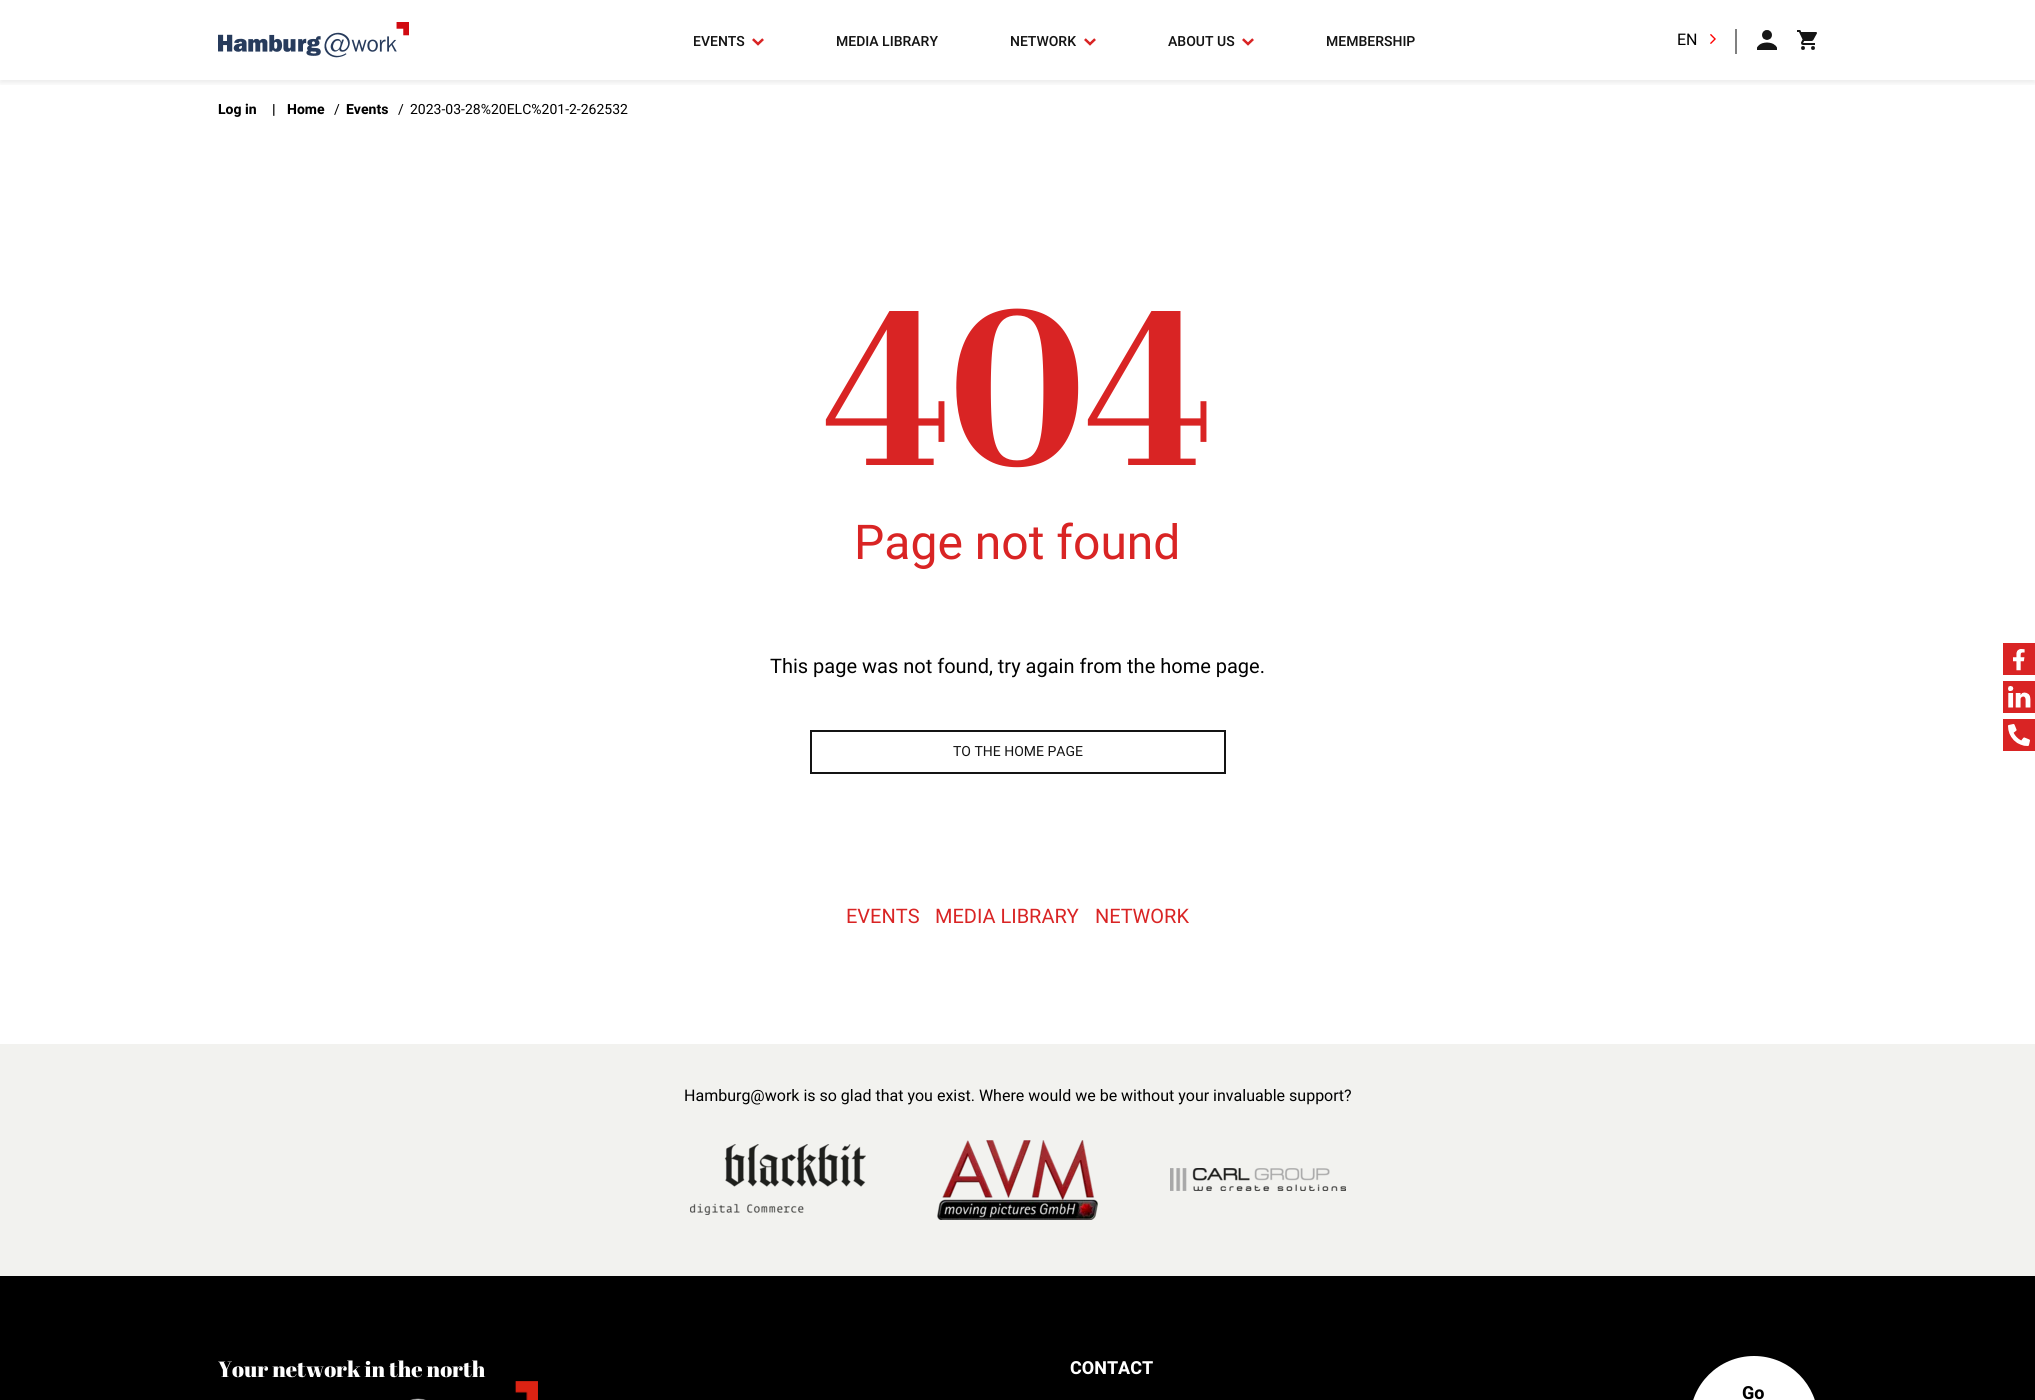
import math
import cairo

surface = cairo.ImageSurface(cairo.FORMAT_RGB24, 2035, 1400)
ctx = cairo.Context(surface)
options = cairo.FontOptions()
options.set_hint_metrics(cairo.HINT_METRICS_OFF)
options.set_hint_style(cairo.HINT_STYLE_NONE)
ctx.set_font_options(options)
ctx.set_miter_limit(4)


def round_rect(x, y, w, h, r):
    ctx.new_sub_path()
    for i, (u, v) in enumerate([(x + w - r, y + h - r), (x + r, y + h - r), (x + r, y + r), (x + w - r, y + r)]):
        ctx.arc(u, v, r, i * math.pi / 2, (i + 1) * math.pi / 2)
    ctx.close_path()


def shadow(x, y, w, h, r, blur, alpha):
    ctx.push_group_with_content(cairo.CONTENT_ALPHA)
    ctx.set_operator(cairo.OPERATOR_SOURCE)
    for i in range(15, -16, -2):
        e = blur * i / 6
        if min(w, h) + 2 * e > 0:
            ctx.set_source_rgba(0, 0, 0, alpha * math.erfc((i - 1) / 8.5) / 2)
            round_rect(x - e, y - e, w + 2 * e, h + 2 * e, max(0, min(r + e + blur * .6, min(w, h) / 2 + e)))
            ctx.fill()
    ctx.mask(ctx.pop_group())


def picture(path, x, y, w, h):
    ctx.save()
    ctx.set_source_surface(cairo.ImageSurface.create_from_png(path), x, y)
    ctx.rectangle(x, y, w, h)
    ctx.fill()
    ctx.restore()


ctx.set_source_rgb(1, 1, 1)
ctx.paint()
ctx.save()
ctx.rectangle(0, 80, 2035, 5)
ctx.clip()
ctx.set_source_rgb(0, 0, 0)
shadow(0, 3, 2035, 80, 0, 3, 0.08)
ctx.restore()
picture("img1.png", 218, 22, 191, 36)
ctx.select_font_face("Heebo Medium")
ctx.set_font_size(14)
ctx.set_source_rgb(0.082, 0.082, 0.082)
ctx.move_to(693, 46)
ctx.show_text("EVENTS")
picture("img2.png", 752, 38, 12, 8)
ctx.move_to(836, 46)
ctx.show_text("MEDIA LIBRARY")
ctx.move_to(1010, 46)
ctx.show_text("NETWORK")
picture("img2.png", 1084, 38, 12, 8)
ctx.move_to(1168, 46)
ctx.show_text("ABOUT US")
picture("img2.png", 1242, 38, 12, 8)
ctx.move_to(1326, 46)
ctx.show_text("MEMBERSHIP")
ctx.select_font_face("Heebo")
ctx.set_font_size(16)
ctx.set_source_rgb(0, 0, 0)
ctx.move_to(1677, 45)
ctx.show_text("EN")
picture("img3.png", 1710, 34, 6, 10)
ctx.set_source_rgb(0.502, 0.502, 0.502)
ctx.rectangle(1735, 29, 2, 25)
ctx.fill()
picture("img4.png", 1757, 30, 20, 20)
picture("img5.png", 1797, 30, 20, 20)
ctx.select_font_face("Heebo", cairo.FONT_SLANT_NORMAL, cairo.FONT_WEIGHT_BOLD)
ctx.set_font_size(14)
ctx.set_source_rgb(0, 0, 0)
ctx.move_to(218, 114)
ctx.show_text("Log in")
ctx.move_to(272, 114)
ctx.show_text("|")
ctx.move_to(287, 114)
ctx.show_text("Home")
ctx.select_font_face("Heebo")
ctx.move_to(334, 114)
ctx.show_text("/")
ctx.select_font_face("Heebo", cairo.FONT_SLANT_NORMAL, cairo.FONT_WEIGHT_BOLD)
ctx.move_to(346, 114)
ctx.show_text("Events")
ctx.select_font_face("Heebo")
ctx.move_to(398, 114)
ctx.show_text("/")
ctx.move_to(410, 114)
ctx.show_text("2023-03-28%20ELC%201-2-262532")
ctx.select_font_face("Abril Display", cairo.FONT_SLANT_NORMAL, cairo.FONT_WEIGHT_BOLD)
ctx.set_font_size(220)
ctx.set_source_rgb(0.851, 0.141, 0.141)
ctx.move_to(823, 465)
ctx.show_text("404")
ctx.select_font_face("Heebo")
ctx.set_font_size(48)
ctx.move_to(854, 559)
ctx.show_text("Page not found")
ctx.set_font_size(20)
ctx.set_source_rgb(0, 0, 0)
ctx.move_to(770, 673)
ctx.show_text("This page was not found, try again from the home page.")
ctx.rectangle(811, 731, 414, 42)
ctx.set_source_rgb(0.082, 0.082, 0.082)
ctx.stroke()
ctx.set_font_size(14)
ctx.move_to(953, 756)
ctx.show_text("TO THE HOME PAGE")
ctx.set_font_size(20)
ctx.set_source_rgb(0.851, 0.141, 0.141)
ctx.move_to(846, 923)
ctx.show_text("EVENTS")
ctx.move_to(935, 923)
ctx.show_text("MEDIA LIBRARY")
ctx.move_to(1095, 923)
ctx.show_text("NETWORK")
ctx.rectangle(2003, 643, 32, 32)
ctx.fill()
picture("img6.png", 2013, 649, 12, 22)
ctx.rectangle(2003, 681, 32, 32)
ctx.fill()
picture("img7.png", 2008, 686, 23, 22)
ctx.rectangle(2003, 719, 32, 32)
ctx.fill()
picture("img8.png", 2008, 724, 22, 22)
ctx.set_source_rgb(0.949, 0.949, 0.937)
ctx.rectangle(0, 1044, 2035, 232)
ctx.fill()
ctx.set_font_size(16)
ctx.set_source_rgb(0, 0, 0)
ctx.move_to(684, 1101)
ctx.show_text("Hamburg@work is so glad that you exist. Where would we be without your invaluable support?")
picture("img9.png", 690, 1144, 176, 71)
picture("img10.png", 937, 1140, 161, 80)
picture("img11.png", 1170, 1168, 176, 23)
ctx.rectangle(0, 1276, 2035, 124)
ctx.fill()
ctx.select_font_face("Abril Fatface")
ctx.set_font_size(22)
ctx.set_source_rgb(1, 1, 1)
ctx.move_to(218, 1377)
ctx.show_text("Your network in the north")
picture("img12.png", 410, 1381, 128, 19)
ctx.select_font_face("Heebo", cairo.FONT_SLANT_NORMAL, cairo.FONT_WEIGHT_BOLD)
ctx.set_font_size(18)
ctx.move_to(1070, 1374)
ctx.show_text("CONTACT")
round_rect(1690, 1356, 128, 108, 64)
ctx.fill()
ctx.set_source_rgb(0, 0, 0)
ctx.move_to(1742, 1399)
ctx.show_text("Go")
surface.write_to_png("page.png")
